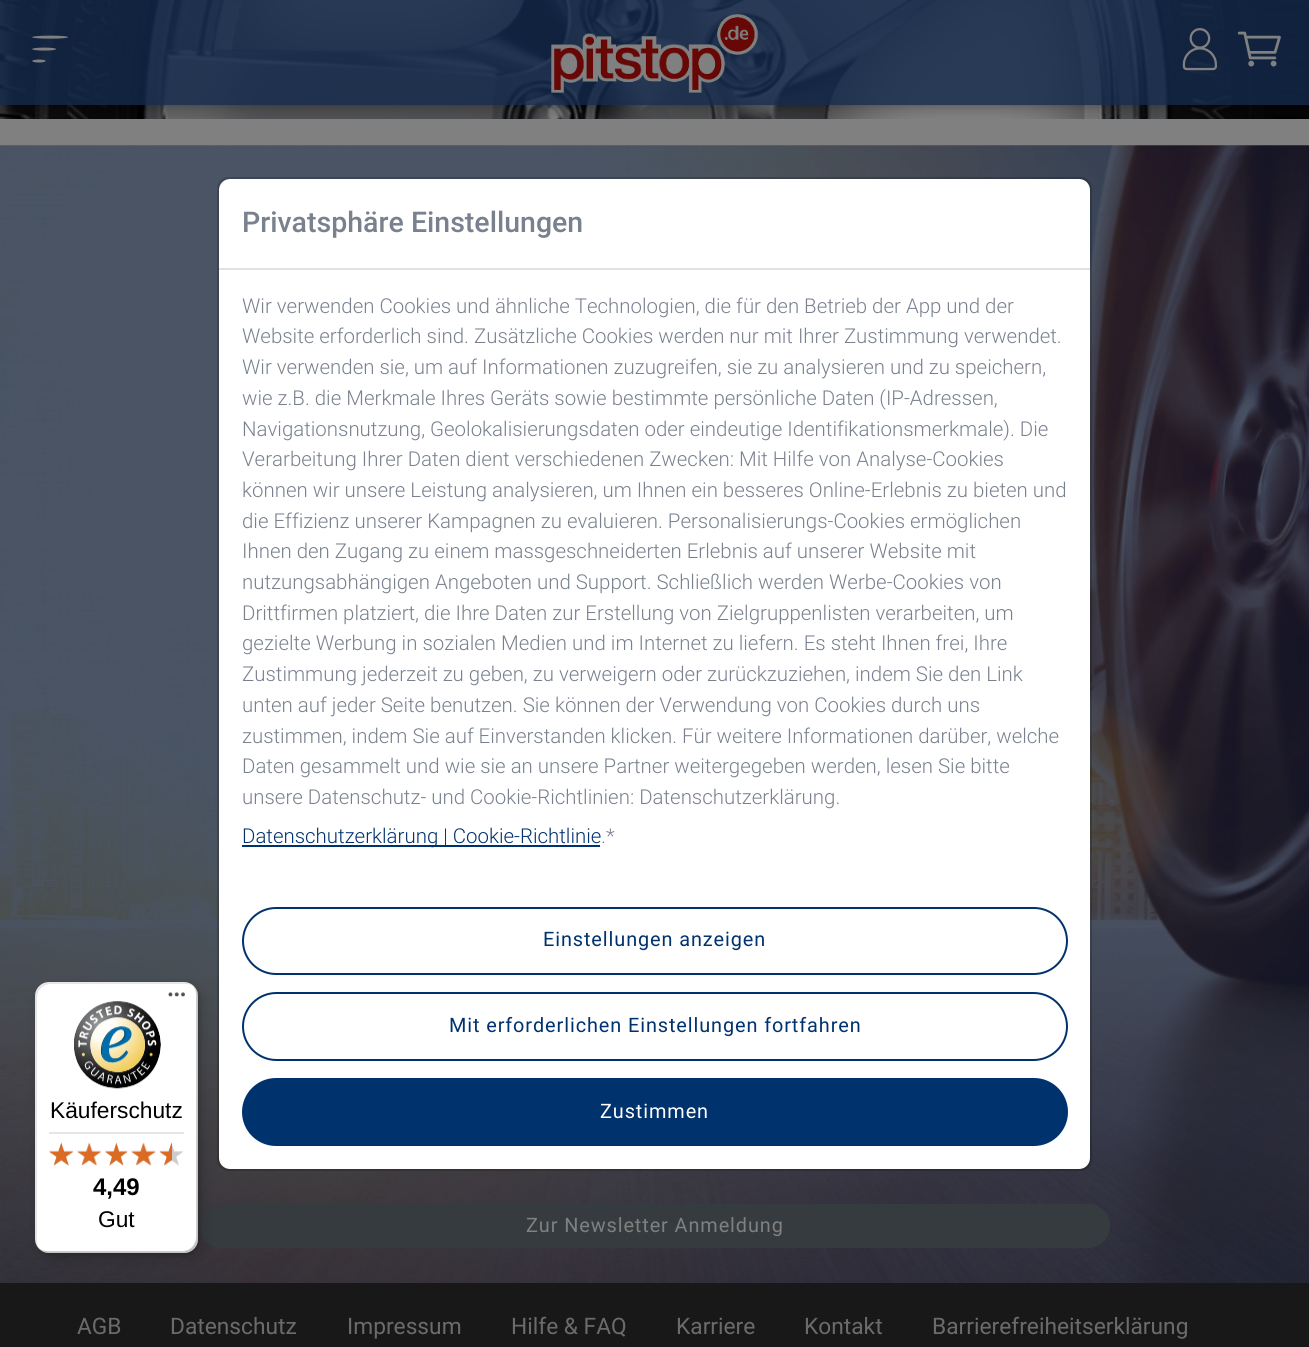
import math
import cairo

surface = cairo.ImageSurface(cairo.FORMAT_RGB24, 1309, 1347)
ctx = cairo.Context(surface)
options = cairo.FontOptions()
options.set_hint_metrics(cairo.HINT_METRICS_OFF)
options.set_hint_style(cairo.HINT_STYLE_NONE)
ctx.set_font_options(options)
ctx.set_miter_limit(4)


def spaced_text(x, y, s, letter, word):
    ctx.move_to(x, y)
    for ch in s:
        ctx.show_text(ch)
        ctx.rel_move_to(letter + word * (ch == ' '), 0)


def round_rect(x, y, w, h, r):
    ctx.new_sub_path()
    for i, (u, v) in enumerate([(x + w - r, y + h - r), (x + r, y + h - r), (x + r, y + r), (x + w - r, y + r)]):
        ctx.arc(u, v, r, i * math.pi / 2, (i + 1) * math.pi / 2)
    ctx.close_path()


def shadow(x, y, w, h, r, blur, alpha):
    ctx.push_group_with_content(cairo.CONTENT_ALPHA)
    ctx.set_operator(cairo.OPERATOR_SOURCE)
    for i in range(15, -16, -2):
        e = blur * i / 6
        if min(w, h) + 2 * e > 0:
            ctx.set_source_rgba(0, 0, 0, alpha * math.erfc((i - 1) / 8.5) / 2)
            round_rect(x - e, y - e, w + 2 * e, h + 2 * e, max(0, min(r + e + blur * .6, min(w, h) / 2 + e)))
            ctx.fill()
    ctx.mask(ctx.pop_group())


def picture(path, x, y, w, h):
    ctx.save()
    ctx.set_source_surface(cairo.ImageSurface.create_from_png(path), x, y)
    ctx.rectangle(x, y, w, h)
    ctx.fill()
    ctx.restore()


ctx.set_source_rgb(0.502, 0.502, 0.502)
ctx.paint()
picture("img1.png", 0, 0, 1309, 119)
ctx.save()
ctx.rectangle(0, 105, 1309, 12)
ctx.clip()
ctx.set_source_rgb(0, 0, 0)
shadow(0, 0, 1309, 105, 0, 7, 0.4)
ctx.restore()
ctx.set_source_rgba(0.078, 0.165, 0.298, 0.8)
ctx.rectangle(0, 0, 1309, 105)
ctx.fill()
picture("img2.png", 32, 35, 36, 28)
picture("img3.png", 551, 13, 208, 80)
picture("img4.png", 1182, 28, 35, 43)
picture("img5.png", 1237, 31, 44, 36)
picture("img18.png", 0, 145, 1309, 1138)
ctx.set_source_rgb(1, 1, 1)
round_rect(219, 179, 871, 990, 11)
ctx.fill()
round_rect(218, 178, 873, 992, 11)
ctx.set_source_rgba(0, 0, 0, 0.18)
ctx.stroke()
ctx.set_source_rgb(0.871, 0.886, 0.902)
ctx.rectangle(219, 268, 871, 2)
ctx.fill()
ctx.select_font_face("Roboto Medium")
ctx.set_font_size(28.5)
ctx.set_source_rgb(0.475, 0.506, 0.557)
ctx.move_to(242, 232)
ctx.show_text("Privatsphäre Einstellungen")
ctx.select_font_face("Roboto Light")
ctx.set_font_size(20.45)
ctx.move_to(242, 313)
ctx.show_text("Wir verwenden Cookies und ähnliche Technologien, die für den Betrieb der App und der")
ctx.move_to(242, 343)
ctx.show_text("Website erforderlich sind. Zusätzliche Cookies werden nur mit Ihrer Zustimmung verwendet.")
ctx.move_to(242, 374)
ctx.show_text("Wir verwenden sie, um auf Informationen zuzugreifen, sie zu analysieren und zu speichern,")
ctx.move_to(242, 405)
ctx.show_text("wie z.B. die Merkmale Ihres Geräts sowie bestimmte persönliche Daten (IP-Adressen,")
ctx.move_to(242, 436)
ctx.show_text("Navigationsnutzung, Geolokalisierungsdaten oder eindeutige Identifikationsmerkmale). Die")
ctx.move_to(242, 466)
ctx.show_text("Verarbeitung Ihrer Daten dient verschiedenen Zwecken: Mit Hilfe von Analyse-Cookies")
ctx.move_to(242, 497)
ctx.show_text("können wir unsere Leistung analysieren, um Ihnen ein besseres Online-Erlebnis zu bieten und")
ctx.move_to(242, 528)
ctx.show_text("die Effizienz unserer Kampagnen zu evaluieren. Personalisierungs-Cookies ermöglichen")
ctx.move_to(242, 558)
ctx.show_text("Ihnen den Zugang zu einem massgeschneiderten Erlebnis auf unserer Website mit")
ctx.move_to(242, 589)
ctx.show_text("nutzungsabhängigen Angeboten und Support. Schließlich werden Werbe-Cookies von")
ctx.move_to(242, 620)
ctx.show_text("Drittfirmen platziert, die Ihre Daten zur Erstellung von Zielgruppenlisten verarbeiten, um")
ctx.move_to(242, 650)
ctx.show_text("gezielte Werbung in sozialen Medien und im Internet zu liefern. Es steht Ihnen frei, Ihre")
ctx.move_to(242, 681)
ctx.show_text("Zustimmung jederzeit zu geben, zu verweigern oder zurückzuziehen, indem Sie den Link")
ctx.move_to(242, 712)
ctx.show_text("unten auf jeder Seite benutzen. Sie können der Verwendung von Cookies durch uns")
ctx.move_to(242, 743)
ctx.show_text("zustimmen, indem Sie auf Einverstanden klicken. Für weitere Informationen darüber, welche")
ctx.move_to(242, 773)
ctx.show_text("Daten gesammelt und wie sie an unsere Partner weitergegeben werden, lesen Sie bitte")
ctx.move_to(242, 804)
ctx.show_text("unsere Datenschutz- und Cookie-Richtlinien: Datenschutzerklärung.")
ctx.set_source_rgb(0, 0.196, 0.431)
ctx.rectangle(242, 845, 358, 2)
ctx.fill()
ctx.move_to(242, 843)
ctx.show_text("Datenschutzerklärung | Cookie-Richtlinie")
ctx.set_source_rgb(0.475, 0.506, 0.557)
ctx.move_to(601, 843)
ctx.show_text(".*")
round_rect(243, 908, 824, 66, 33)
ctx.set_source_rgb(0, 0.196, 0.431)
ctx.stroke()
ctx.select_font_face("Roboto")
ctx.set_font_size(19.9)
spaced_text(543, 946, "Einstellungen anzeigen", 0.9, 0)
round_rect(243, 993, 824, 67, 33.5)
ctx.stroke()
spaced_text(449, 1032, "Mit erforderlichen Einstellungen fortfahren", 0.9, 0)
round_rect(243, 1079, 824, 66, 33)
ctx.fill_preserve()
ctx.stroke()
ctx.set_source_rgb(1, 1, 1)
spaced_text(600, 1118, "Zustimmen", 0.9, 0)
ctx.set_source_rgb(0.212, 0.231, 0.247)
round_rect(201, 1205, 908, 42, 21)
ctx.fill_preserve()
ctx.stroke()
ctx.set_source_rgb(0, 0, 0)
shadow(40, 987, 163, 271, 14, 7, 0.15)
shadow(37, 984, 163, 271, 14, 2, 0.15)
ctx.set_source_rgb(1, 1, 1)
round_rect(35, 982, 163, 271, 14)
ctx.fill()
ctx.set_source_rgba(0, 0, 0, 0.1)
ctx.new_path()
ctx.move_to(51, 984)
ctx.line_to(186, 984)
ctx.curve_to(189, 984, 193, 985, 195, 988)
ctx.curve_to(193, 984, 189, 982, 184, 982)
ctx.line_to(49, 982)
ctx.curve_to(41, 982, 35, 988, 35, 996)
ctx.line_to(35, 1239)
ctx.curve_to(35, 1244, 37, 1248, 41, 1250)
ctx.curve_to(38, 1248, 37, 1244, 37, 1241)
ctx.line_to(37, 998)
ctx.curve_to(37, 990, 43, 984, 51, 984)
ctx.close_path()
ctx.fill()
ctx.set_source_rgba(0, 0, 0, 0.2)
ctx.new_path()
ctx.move_to(38, 1247)
ctx.curve_to(40, 1251, 44, 1253, 49, 1253)
ctx.line_to(184, 1253)
ctx.curve_to(192, 1253, 198, 1247, 198, 1239)
ctx.line_to(198, 996)
ctx.curve_to(198, 992, 196, 988, 193, 986)
ctx.curve_to(195, 988, 196, 991, 196, 994)
ctx.line_to(196, 1237)
ctx.curve_to(196, 1245, 190, 1251, 182, 1251)
ctx.line_to(47, 1251)
ctx.curve_to(44, 1251, 40, 1250, 38, 1247)
ctx.close_path()
ctx.fill()
ctx.set_source_rgba(0.196, 0.196, 0.196, 0.2)
ctx.new_path()
ctx.move_to(40, 1249)
ctx.curve_to(42, 1252, 45, 1253, 49, 1253)
ctx.line_to(184, 1253)
ctx.curve_to(192, 1253, 198, 1247, 198, 1239)
ctx.line_to(198, 996)
ctx.curve_to(198, 991, 196, 987, 192, 985)
ctx.curve_to(195, 987, 197, 991, 197, 995)
ctx.line_to(197, 1238)
ctx.curve_to(197, 1246, 190, 1252, 183, 1252)
ctx.line_to(48, 1252)
ctx.curve_to(45, 1252, 42, 1251, 40, 1249)
ctx.close_path()
ctx.fill()
ctx.set_source_rgba(1, 1, 1, 0.3)
ctx.new_path()
ctx.move_to(40, 1249)
ctx.curve_to(42, 1252, 45, 1253, 49, 1253)
ctx.line_to(184, 1253)
ctx.curve_to(192, 1253, 198, 1247, 198, 1239)
ctx.line_to(198, 996)
ctx.curve_to(198, 992, 197, 989, 194, 987)
ctx.curve_to(196, 989, 197, 992, 197, 995)
ctx.line_to(197, 1238)
ctx.curve_to(197, 1246, 191, 1252, 183, 1252)
ctx.line_to(48, 1252)
ctx.curve_to(45, 1252, 42, 1251, 40, 1249)
ctx.close_path()
ctx.fill()
picture("img6.png", 168, 992, 17, 5)
picture("img7.png", 74, 1001, 87, 88)
ctx.select_font_face("Liberation Sans")
ctx.set_font_size(22.75)
ctx.set_source_rgb(0, 0, 0)
ctx.move_to(50, 1118)
ctx.show_text("Käuferschutz")
ctx.set_source_rgb(0.898, 0.898, 0.898)
ctx.rectangle(49, 1132, 135, 2)
ctx.fill()
picture("img13.png", 49, 1143, 24, 23)
picture("img8.png", 49, 1142, 24, 24)
picture("img14.png", 77, 1143, 24, 23)
picture("img9.png", 77, 1142, 25, 24)
picture("img15.png", 105, 1143, 23, 23)
picture("img10.png", 105, 1142, 23, 24)
picture("img16.png", 131, 1143, 25, 22)
picture("img11.png", 131, 1142, 25, 24)
picture("img17.png", 160, 1143, 23, 23)
picture("img12.png", 159, 1142, 13, 24)
ctx.select_font_face("Liberation Sans", cairo.FONT_SLANT_NORMAL, cairo.FONT_WEIGHT_BOLD)
ctx.set_font_size(24)
ctx.set_source_rgb(0, 0, 0)
ctx.move_to(93, 1195)
ctx.show_text("4,49")
ctx.select_font_face("Liberation Sans")
ctx.set_font_size(22.75)
ctx.move_to(98, 1227)
ctx.show_text("Gut")
ctx.select_font_face("Roboto")
ctx.set_font_size(19.9)
ctx.set_source_rgb(0.502, 0.502, 0.502)
spaced_text(526, 1232, "Zur Newsletter Anmeldung", 0.9, 0)
ctx.set_source_rgb(0.094, 0.094, 0.094)
ctx.rectangle(0, 1283, 1309, 64)
ctx.fill()
ctx.set_font_size(22.75)
ctx.set_source_rgb(0.424, 0.42, 0.42)
ctx.move_to(77, 1334)
ctx.show_text("AGB")
ctx.move_to(170, 1334)
ctx.show_text("Datenschutz")
ctx.move_to(347, 1334)
ctx.show_text("Impressum")
ctx.move_to(511, 1334)
ctx.show_text("Hilfe & FAQ")
ctx.move_to(676, 1334)
ctx.show_text("Karriere")
ctx.move_to(804, 1334)
ctx.show_text("Kontakt")
ctx.move_to(932, 1334)
ctx.show_text("Barrierefreiheitserklärung")
surface.write_to_png("page.png")
